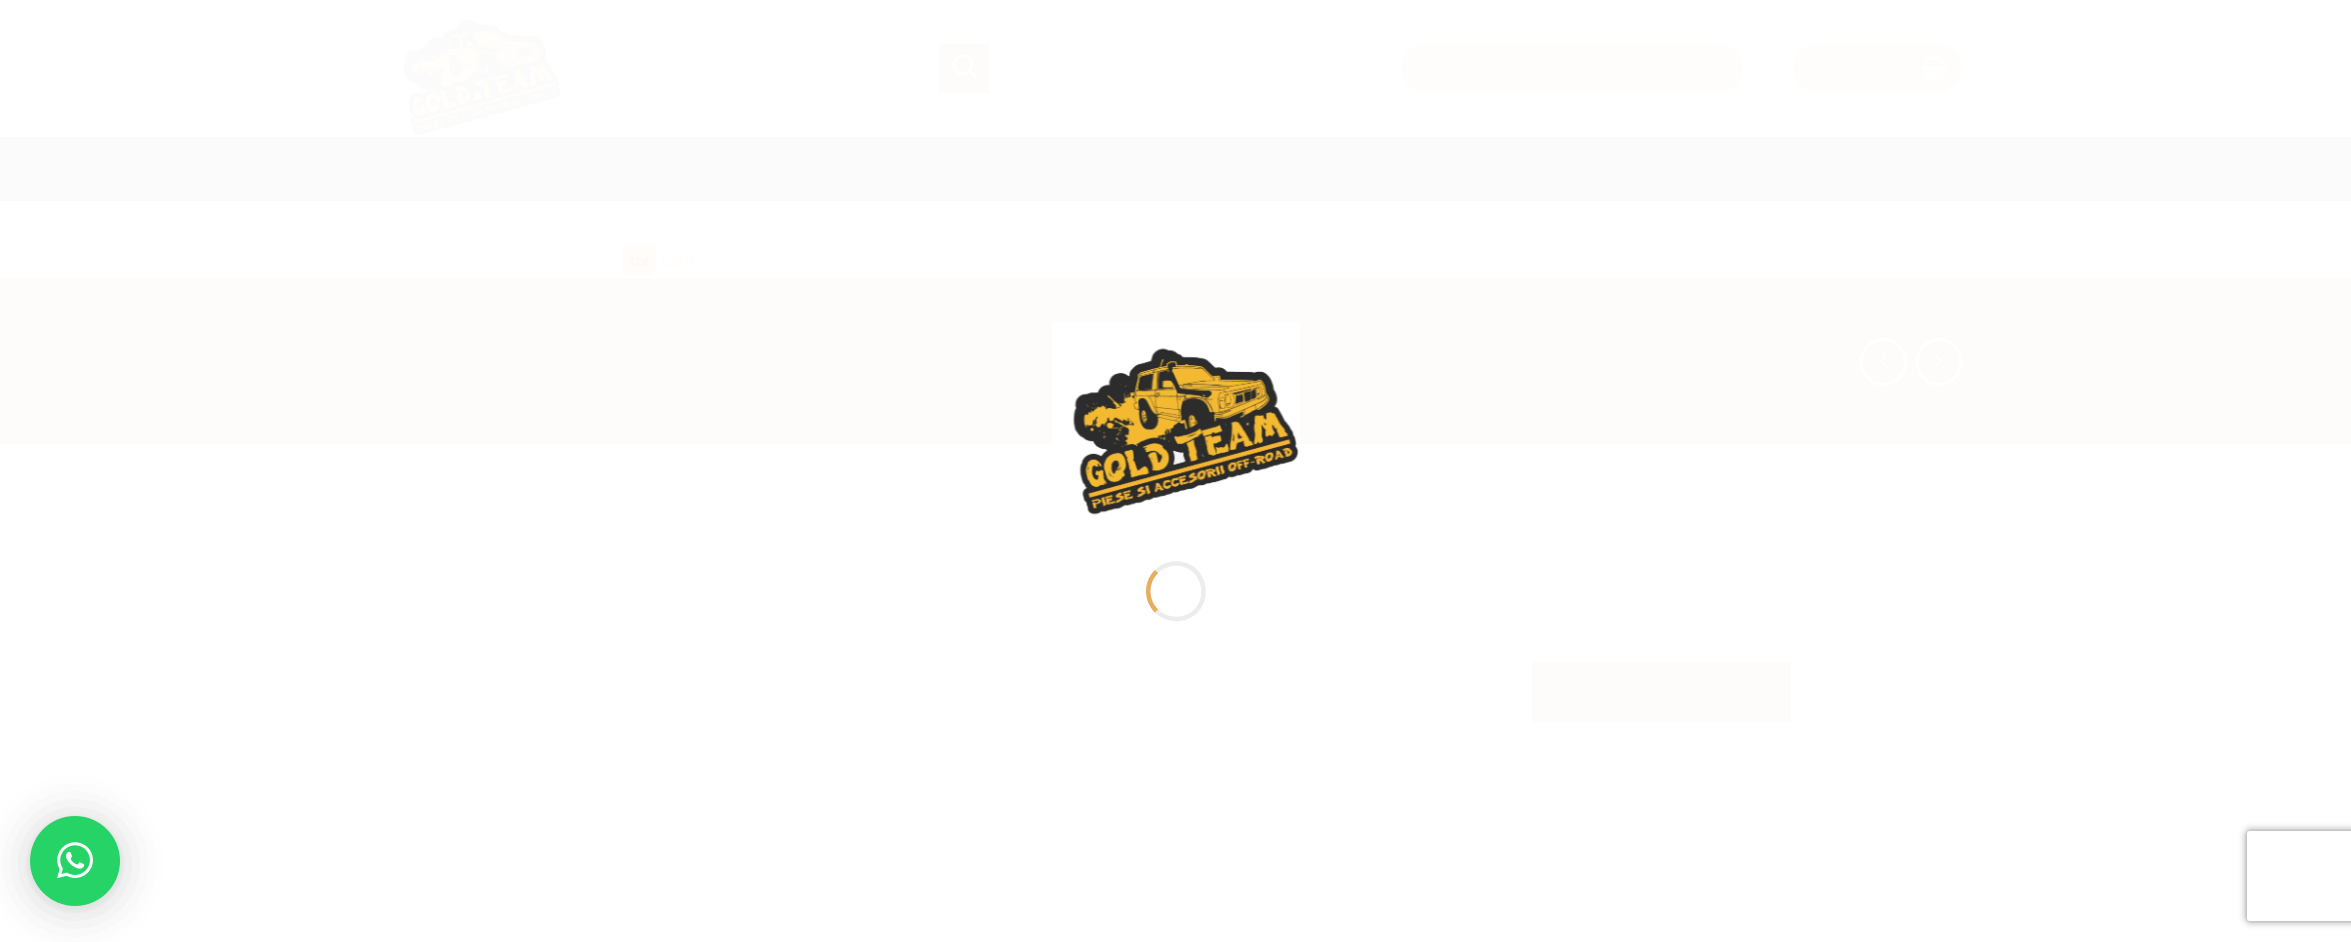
import math
import cairo

surface = cairo.ImageSurface(cairo.FORMAT_RGB24, 2351, 942)
ctx = cairo.Context(surface)
options = cairo.FontOptions()
options.set_hint_metrics(cairo.HINT_METRICS_OFF)
options.set_hint_style(cairo.HINT_STYLE_NONE)
ctx.set_font_options(options)
ctx.set_miter_limit(4)


def round_rect(x, y, w, h, r):
    ctx.new_sub_path()
    for i, (u, v) in enumerate([(x + w - r, y + h - r), (x + r, y + h - r), (x + r, y + r), (x + w - r, y + r)]):
        ctx.arc(u, v, r, i * math.pi / 2, (i + 1) * math.pi / 2)
    ctx.close_path()


def shadow(x, y, w, h, r, blur, alpha):
    ctx.push_group_with_content(cairo.CONTENT_ALPHA)
    ctx.set_operator(cairo.OPERATOR_SOURCE)
    for i in range(15, -16, -2):
        e = blur * i / 6
        if min(w, h) + 2 * e > 0:
            ctx.set_source_rgba(0, 0, 0, alpha * math.erfc((i - 1) / 8.5) / 2)
            round_rect(x - e, y - e, w + 2 * e, h + 2 * e, max(0, min(r + e + blur * .6, min(w, h) / 2 + e)))
            ctx.fill()
    ctx.mask(ctx.pop_group())


def picture(path, x, y, w, h):
    ctx.save()
    ctx.set_source_surface(cairo.ImageSurface.create_from_png(path), x, y)
    ctx.rectangle(x, y, w, h)
    ctx.fill()
    ctx.restore()


ctx.set_source_rgb(1, 1, 1)
ctx.paint()
picture("img1.png", 403, 19, 158, 116)
ctx.set_source_rgb(0.996, 0.988, 0.984)
ctx.rectangle(940, 45, 49, 47)
ctx.fill_preserve()
ctx.stroke()
picture("img2.png", 952, 54, 25, 24)
ctx.set_source_rgb(0.996, 0.992, 0.984)
round_rect(1401, 44, 342, 49, 24.5)
ctx.fill()
round_rect(1793, 44, 168, 49, 24.5)
ctx.fill()
picture("img3.png", 1921, 56, 27, 24)
ctx.set_source_rgb(0.984, 0.984, 0.984)
ctx.rectangle(0, 137, 2351, 64)
ctx.fill()
picture("img4.png", 622, 244, 76, 32)
ctx.set_source_rgb(0.992, 0.988, 0.984)
ctx.rectangle(0, 278, 2351, 166)
ctx.fill()
round_rect(1861.5, 339.5, 44, 45, 22)
ctx.set_source_rgb(1, 1, 1)
ctx.set_line_width(3)
ctx.stroke()
picture("img5.png", 1879, 354, 8, 13)
round_rect(1917.5, 339.5, 43, 45, 21.5)
ctx.stroke()
picture("img6.png", 1935, 354, 8, 13)
picture("img7.png", 1052, 322, 248, 193)
ctx.new_path()
ctx.move_to(1156.5, 571.5)
ctx.curve_to(1161.5, 566.5, 1168.5, 563.5, 1176, 563.5)
ctx.curve_to(1209, 563.5, 1214, 612, 1181.5, 618.5)
ctx.curve_to(1172.5, 620, 1163, 617.5, 1156.5, 611)
ctx.set_source_rgb(0.922, 0.922, 0.922)
ctx.set_line_width(4.5)
ctx.stroke()
ctx.new_path()
ctx.move_to(1156.5, 611)
ctx.curve_to(1145.5, 600, 1145.5, 582.5, 1156.5, 571.5)
ctx.set_source_rgba(0.867, 0.6, 0.2, 0.78)
ctx.stroke()
ctx.set_source_rgb(0.996, 0.988, 0.984)
ctx.rectangle(1533, 663, 257, 58)
ctx.fill_preserve()
ctx.set_line_width(2)
ctx.stroke()
ctx.set_source_rgb(0, 0, 0)
shadow(30, 819, 90, 90, 45, 24, 0.16)
shadow(30, 818, 90, 90, 45, 4.5, 0.06)
ctx.set_source_rgb(0.145, 0.827, 0.4)
ctx.arc(75, 861, 45, 0, 2 * math.pi)
ctx.fill()
picture("img8.png", 57, 842, 36, 37)
ctx.save()
ctx.set_fill_rule(cairo.FILL_RULE_EVEN_ODD)
ctx.new_path()
ctx.move_to(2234, 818)
ctx.line_to(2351, 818)
ctx.line_to(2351, 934)
ctx.line_to(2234, 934)
ctx.close_path()
ctx.move_to(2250, 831)
ctx.line_to(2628, 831)
ctx.curve_to(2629.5, 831, 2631, 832.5, 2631, 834)
ctx.line_to(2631, 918)
ctx.curve_to(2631, 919.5, 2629.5, 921, 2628, 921)
ctx.line_to(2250, 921)
ctx.curve_to(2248.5, 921, 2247, 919.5, 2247, 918)
ctx.line_to(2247, 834)
ctx.curve_to(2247, 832.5, 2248.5, 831, 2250, 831)
ctx.close_path()
ctx.clip()
ctx.set_source_rgb(0.502, 0.502, 0.502)
shadow(2247, 831, 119, 90, 3, 4, 1)
ctx.restore()
surface.write_to_png("page.png")
